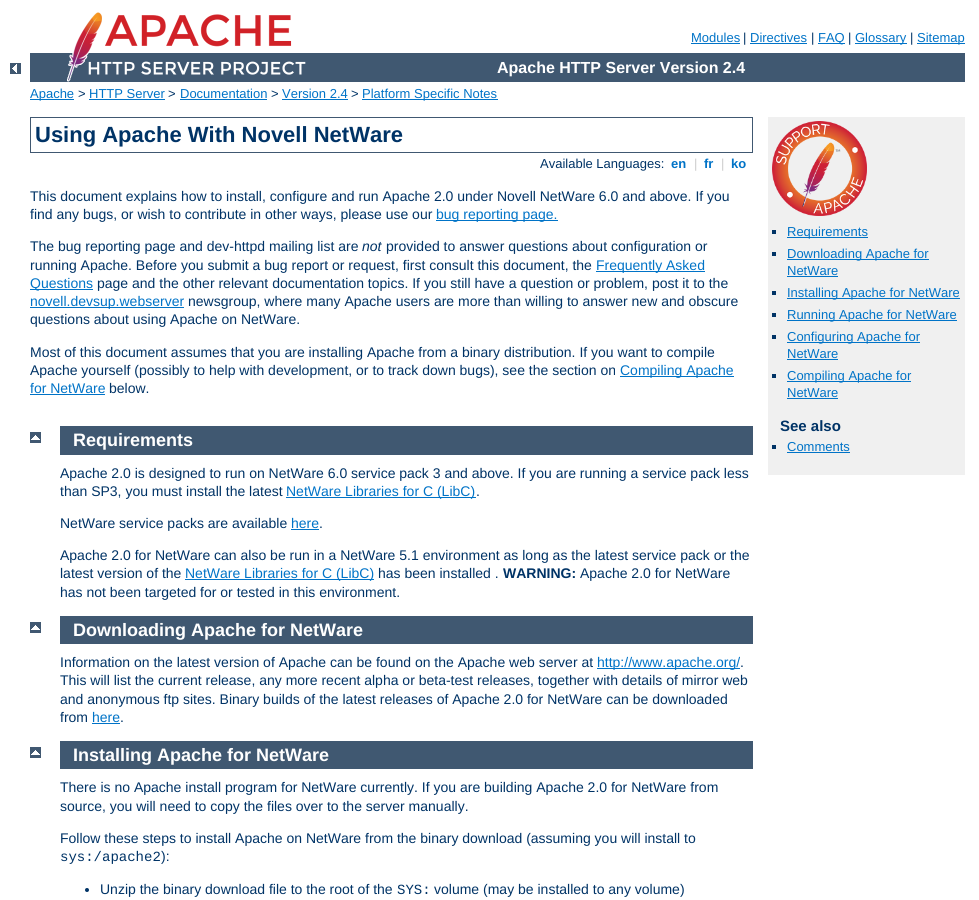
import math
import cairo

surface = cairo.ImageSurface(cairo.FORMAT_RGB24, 979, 900)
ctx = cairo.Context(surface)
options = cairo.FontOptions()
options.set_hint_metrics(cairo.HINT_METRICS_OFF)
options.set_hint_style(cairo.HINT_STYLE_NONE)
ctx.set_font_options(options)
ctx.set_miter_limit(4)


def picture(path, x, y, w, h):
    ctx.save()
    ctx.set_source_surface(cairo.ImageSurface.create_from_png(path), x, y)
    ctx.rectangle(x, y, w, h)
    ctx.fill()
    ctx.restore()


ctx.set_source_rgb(1, 1, 1)
ctx.paint()
picture("img1.png", 10, 63, 11, 11)
ctx.set_source_rgb(0.251, 0.345, 0.443)
ctx.rectangle(30, 53, 935, 29)
ctx.fill()
picture("img2.png", 67, 12, 239, 70)
ctx.select_font_face("Liberation Sans")
ctx.set_font_size(13)
ctx.set_source_rgb(0, 0.451, 0.78)
ctx.move_to(691, 42)
ctx.show_text("Modules")
ctx.rectangle(691, 43, 49, 1)
ctx.fill()
ctx.set_source_rgb(0, 0.2, 0.4)
ctx.move_to(743, 42)
ctx.show_text("|")
ctx.set_source_rgb(0, 0.451, 0.78)
ctx.move_to(750, 42)
ctx.show_text("Directives")
ctx.rectangle(750, 43, 57, 1)
ctx.fill()
ctx.set_source_rgb(0, 0.2, 0.4)
ctx.move_to(811, 42)
ctx.show_text("|")
ctx.set_source_rgb(0, 0.451, 0.78)
ctx.rectangle(818, 43, 27, 1)
ctx.fill()
ctx.move_to(818, 42)
ctx.show_text("FAQ")
ctx.set_source_rgb(0, 0.2, 0.4)
ctx.move_to(848, 42)
ctx.show_text("|")
ctx.set_source_rgb(0, 0.451, 0.78)
ctx.rectangle(855, 43, 52, 1)
ctx.fill()
ctx.move_to(855, 42)
ctx.show_text("Glossary")
ctx.set_source_rgb(0, 0.2, 0.4)
ctx.move_to(910, 42)
ctx.show_text("|")
ctx.set_source_rgb(0, 0.451, 0.78)
ctx.rectangle(917, 43, 48, 1)
ctx.fill()
ctx.move_to(917, 42)
ctx.show_text("Sitemap")
ctx.select_font_face("Liberation Sans", cairo.FONT_SLANT_NORMAL, cairo.FONT_WEIGHT_BOLD)
ctx.set_font_size(16)
ctx.set_source_rgb(1, 1, 1)
ctx.move_to(497, 73)
ctx.show_text("Apache HTTP Server Version 2.4")
ctx.set_source_rgb(0, 0.451, 0.78)
ctx.rectangle(30, 99, 44, 1)
ctx.fill()
ctx.select_font_face("Liberation Sans")
ctx.set_font_size(13)
ctx.move_to(30, 98)
ctx.show_text("Apache")
ctx.set_source_rgb(0, 0.2, 0.4)
ctx.move_to(78, 98)
ctx.show_text(">")
ctx.set_source_rgb(0, 0.451, 0.78)
ctx.move_to(89, 98)
ctx.show_text("HTTP Server")
ctx.rectangle(89, 99, 76, 1)
ctx.fill()
ctx.set_source_rgb(0, 0.2, 0.4)
ctx.move_to(168, 98)
ctx.show_text(">")
ctx.set_source_rgb(0, 0.451, 0.78)
ctx.move_to(180, 98)
ctx.show_text("Documentation")
ctx.rectangle(180, 99, 87, 1)
ctx.fill()
ctx.set_source_rgb(0, 0.2, 0.4)
ctx.move_to(271, 98)
ctx.show_text(">")
ctx.set_source_rgb(0, 0.451, 0.78)
ctx.move_to(282, 98)
ctx.show_text("Version 2.4")
ctx.rectangle(282, 99, 66, 1)
ctx.fill()
ctx.set_source_rgb(0, 0.2, 0.4)
ctx.move_to(351, 98)
ctx.show_text(">")
ctx.set_source_rgb(0, 0.451, 0.78)
ctx.rectangle(362, 99, 136, 1)
ctx.fill()
ctx.move_to(362, 98)
ctx.show_text("Platform Specific Notes")
ctx.rectangle(30.5, 117.5, 722, 35)
ctx.set_source_rgb(0.251, 0.345, 0.443)
ctx.set_line_width(1)
ctx.stroke()
ctx.select_font_face("Liberation Sans", cairo.FONT_SLANT_NORMAL, cairo.FONT_WEIGHT_BOLD)
ctx.set_font_size(22)
ctx.set_source_rgb(0, 0.2, 0.4)
ctx.move_to(35, 142)
ctx.show_text("Using Apache With Novell NetWare")
ctx.select_font_face("Liberation Sans")
ctx.set_font_size(13)
ctx.move_to(540, 168)
ctx.show_text("Available Languages:")
ctx.select_font_face("Liberation Sans", cairo.FONT_SLANT_NORMAL, cairo.FONT_WEIGHT_BOLD)
ctx.set_source_rgb(0, 0.451, 0.78)
ctx.move_to(671, 168)
ctx.show_text("en")
ctx.select_font_face("Liberation Sans")
ctx.set_source_rgb(0.8, 0.8, 0.8)
ctx.move_to(694, 168)
ctx.show_text("|")
ctx.select_font_face("Liberation Sans", cairo.FONT_SLANT_NORMAL, cairo.FONT_WEIGHT_BOLD)
ctx.set_source_rgb(0, 0.451, 0.78)
ctx.move_to(704, 168)
ctx.show_text("fr")
ctx.select_font_face("Liberation Sans")
ctx.set_source_rgb(0.8, 0.8, 0.8)
ctx.move_to(721, 168)
ctx.show_text("|")
ctx.select_font_face("Liberation Sans", cairo.FONT_SLANT_NORMAL, cairo.FONT_WEIGHT_BOLD)
ctx.set_source_rgb(0, 0.451, 0.78)
ctx.move_to(731, 168)
ctx.show_text("ko")
ctx.select_font_face("Liberation Sans")
ctx.set_font_size(14)
ctx.set_source_rgb(0, 0.2, 0.4)
ctx.move_to(30, 201)
ctx.show_text("This document explains how to install, configure and run Apache 2.0 under Novell NetWare 6.0 and above. If you")
ctx.move_to(30, 219)
ctx.show_text("find any bugs, or wish to contribute in other ways, please use our")
ctx.set_source_rgb(0, 0.451, 0.78)
ctx.rectangle(436, 220, 122, 1)
ctx.fill()
ctx.move_to(436, 219)
ctx.show_text("bug reporting page.")
ctx.set_source_rgb(0, 0.2, 0.4)
ctx.move_to(30, 251)
ctx.show_text("The bug reporting page and dev-httpd mailing list are")
ctx.select_font_face("Liberation Sans", cairo.FONT_SLANT_ITALIC)
ctx.move_to(362, 251)
ctx.show_text("not")
ctx.select_font_face("Liberation Sans")
ctx.move_to(386, 251)
ctx.show_text("provided to answer questions about configuration or")
ctx.move_to(30, 270)
ctx.show_text("running Apache. Before you submit a bug report or request, first consult this document, the")
ctx.set_source_rgb(0, 0.451, 0.78)
ctx.rectangle(596, 271, 109, 1)
ctx.fill()
ctx.move_to(596, 270)
ctx.show_text("Frequently Asked")
ctx.rectangle(30, 289, 63, 1)
ctx.fill()
ctx.move_to(30, 288)
ctx.show_text("Questions")
ctx.set_source_rgb(0, 0.2, 0.4)
ctx.move_to(97, 288)
ctx.show_text("page and the other relevant documentation topics. If you still have a question or problem, post it to the")
ctx.set_source_rgb(0, 0.451, 0.78)
ctx.rectangle(30, 307, 154, 1)
ctx.fill()
ctx.move_to(30, 306)
ctx.show_text("novell.devsup.webserver")
ctx.set_source_rgb(0, 0.2, 0.4)
ctx.move_to(188, 306)
ctx.show_text("newsgroup, where many Apache users are more than willing to answer new and obscure")
ctx.move_to(30, 324)
ctx.show_text("questions about using Apache on NetWare.")
ctx.move_to(30, 357)
ctx.show_text("Most of this document assumes that you are installing Apache from a binary distribution. If you want to compile")
ctx.move_to(30, 375)
ctx.show_text("Apache yourself (possibly to help with development, or to track down bugs), see the section on")
ctx.set_source_rgb(0, 0.451, 0.78)
ctx.rectangle(620, 376, 114, 1)
ctx.fill()
ctx.move_to(620, 375)
ctx.show_text("Compiling Apache")
ctx.move_to(30, 393)
ctx.show_text("for NetWare")
ctx.rectangle(30, 394, 75, 1)
ctx.fill()
ctx.set_source_rgb(0, 0.2, 0.4)
ctx.move_to(109, 393)
ctx.show_text("below.")
ctx.set_source_rgb(0.941, 0.941, 0.941)
ctx.rectangle(768, 117, 197, 358)
ctx.fill()
picture("img3.png", 772, 121, 95, 95)
ctx.set_source_rgb(0, 0.2, 0.4)
ctx.rectangle(772, 230, 4, 4)
ctx.fill()
ctx.set_source_rgb(0, 0.451, 0.78)
ctx.rectangle(787, 237, 81, 1)
ctx.fill()
ctx.set_font_size(13)
ctx.move_to(787, 236)
ctx.show_text("Requirements")
ctx.set_source_rgb(0, 0.2, 0.4)
ctx.rectangle(772, 252, 4, 4)
ctx.fill()
ctx.set_source_rgb(0, 0.451, 0.78)
ctx.rectangle(787, 259, 142, 1)
ctx.fill()
ctx.move_to(787, 258)
ctx.show_text("Downloading Apache for")
ctx.move_to(787, 275)
ctx.show_text("NetWare")
ctx.rectangle(787, 276, 51, 1)
ctx.fill()
ctx.set_source_rgb(0, 0.2, 0.4)
ctx.rectangle(772, 291, 4, 4)
ctx.fill()
ctx.set_source_rgb(0, 0.451, 0.78)
ctx.rectangle(787, 298, 173, 1)
ctx.fill()
ctx.move_to(787, 297)
ctx.show_text("Installing Apache for NetWare")
ctx.set_source_rgb(0, 0.2, 0.4)
ctx.rectangle(772, 313, 4, 4)
ctx.fill()
ctx.set_source_rgb(0, 0.451, 0.78)
ctx.rectangle(787, 320, 170, 1)
ctx.fill()
ctx.move_to(787, 319)
ctx.show_text("Running Apache for NetWare")
ctx.set_source_rgb(0, 0.2, 0.4)
ctx.rectangle(772, 335, 4, 4)
ctx.fill()
ctx.set_source_rgb(0, 0.451, 0.78)
ctx.rectangle(787, 342, 133, 1)
ctx.fill()
ctx.move_to(787, 341)
ctx.show_text("Configuring Apache for")
ctx.move_to(787, 358)
ctx.show_text("NetWare")
ctx.rectangle(787, 359, 51, 1)
ctx.fill()
ctx.set_source_rgb(0, 0.2, 0.4)
ctx.rectangle(772, 374, 4, 4)
ctx.fill()
ctx.set_source_rgb(0, 0.451, 0.78)
ctx.rectangle(787, 381, 124, 1)
ctx.fill()
ctx.move_to(787, 380)
ctx.show_text("Compiling Apache for")
ctx.move_to(787, 397)
ctx.show_text("NetWare")
ctx.rectangle(787, 398, 51, 1)
ctx.fill()
ctx.select_font_face("Liberation Sans", cairo.FONT_SLANT_NORMAL, cairo.FONT_WEIGHT_BOLD)
ctx.set_font_size(15)
ctx.set_source_rgb(0, 0.2, 0.4)
ctx.move_to(780, 431)
ctx.show_text("See also")
ctx.rectangle(772, 445, 4, 4)
ctx.fill()
ctx.select_font_face("Liberation Sans")
ctx.set_font_size(13)
ctx.set_source_rgb(0, 0.451, 0.78)
ctx.move_to(787, 451)
ctx.show_text("Comments")
ctx.rectangle(787, 452, 63, 1)
ctx.fill()
picture("img4.png", 30, 432, 11, 11)
ctx.set_source_rgb(0.251, 0.345, 0.443)
ctx.rectangle(60, 426, 693, 29)
ctx.fill()
ctx.select_font_face("Liberation Sans", cairo.FONT_SLANT_NORMAL, cairo.FONT_WEIGHT_BOLD)
ctx.set_font_size(18)
ctx.set_source_rgb(1, 1, 1)
ctx.move_to(73, 446)
ctx.show_text("Requirements")
ctx.select_font_face("Liberation Sans")
ctx.set_font_size(14)
ctx.set_source_rgb(0, 0.2, 0.4)
ctx.move_to(60, 478)
ctx.show_text("Apache 2.0 is designed to run on NetWare 6.0 service pack 3 and above. If you are running a service pack less")
ctx.move_to(60, 496)
ctx.show_text("than SP3, you must install the latest")
ctx.set_source_rgb(0, 0.451, 0.78)
ctx.rectangle(286, 497, 190, 1)
ctx.fill()
ctx.move_to(286, 496)
ctx.show_text("NetWare Libraries for C (LibC)")
ctx.set_source_rgb(0, 0.2, 0.4)
ctx.move_to(476, 496)
ctx.show_text(".")
ctx.move_to(60, 528)
ctx.show_text("NetWare service packs are available")
ctx.set_source_rgb(0, 0.451, 0.78)
ctx.move_to(291, 528)
ctx.show_text("here")
ctx.rectangle(291, 529, 28, 1)
ctx.fill()
ctx.set_source_rgb(0, 0.2, 0.4)
ctx.move_to(319, 528)
ctx.show_text(".")
ctx.move_to(60, 560)
ctx.show_text("Apache 2.0 for NetWare can also be run in a NetWare 5.1 environment as long as the latest service pack or the")
ctx.move_to(60, 578)
ctx.show_text("latest version of the")
ctx.set_source_rgb(0, 0.451, 0.78)
ctx.rectangle(185, 579, 189, 1)
ctx.fill()
ctx.move_to(185, 578)
ctx.show_text("NetWare Libraries for C (LibC)")
ctx.set_source_rgb(0, 0.2, 0.4)
ctx.move_to(378, 578)
ctx.show_text("has been installed .")
ctx.select_font_face("Liberation Sans", cairo.FONT_SLANT_NORMAL, cairo.FONT_WEIGHT_BOLD)
ctx.move_to(503, 578)
ctx.show_text("WARNING:")
ctx.select_font_face("Liberation Sans")
ctx.move_to(580, 578)
ctx.show_text("Apache 2.0 for NetWare")
ctx.move_to(60, 597)
ctx.show_text("has not been targeted for or tested in this environment.")
picture("img4.png", 30, 622, 11, 11)
ctx.set_source_rgb(0.251, 0.345, 0.443)
ctx.rectangle(60, 616, 693, 28)
ctx.fill()
ctx.select_font_face("Liberation Sans", cairo.FONT_SLANT_NORMAL, cairo.FONT_WEIGHT_BOLD)
ctx.set_font_size(18)
ctx.set_source_rgb(1, 1, 1)
ctx.move_to(73, 636)
ctx.show_text("Downloading Apache for NetWare")
ctx.select_font_face("Liberation Sans")
ctx.set_font_size(14)
ctx.set_source_rgb(0, 0.2, 0.4)
ctx.move_to(60, 667)
ctx.show_text("Information on the latest version of Apache can be found on the Apache web server at")
ctx.set_source_rgb(0, 0.451, 0.78)
ctx.rectangle(597, 668, 143, 1)
ctx.fill()
ctx.move_to(597, 667)
ctx.show_text("http://www.apache.org/")
ctx.set_source_rgb(0, 0.2, 0.4)
ctx.move_to(740, 667)
ctx.show_text(".")
ctx.move_to(60, 685)
ctx.show_text("This will list the current release, any more recent alpha or beta-test releases, together with details of mirror web")
ctx.move_to(60, 704)
ctx.show_text("and anonymous ftp sites. Binary builds of the latest releases of Apache 2.0 for NetWare can be downloaded")
ctx.move_to(60, 722)
ctx.show_text("from")
ctx.set_source_rgb(0, 0.451, 0.78)
ctx.move_to(92, 722)
ctx.show_text("here")
ctx.rectangle(92, 723, 28, 1)
ctx.fill()
ctx.set_source_rgb(0, 0.2, 0.4)
ctx.move_to(120, 722)
ctx.show_text(".")
picture("img4.png", 30, 747, 11, 11)
ctx.set_source_rgb(0.251, 0.345, 0.443)
ctx.rectangle(60, 741, 693, 28)
ctx.fill()
ctx.select_font_face("Liberation Sans", cairo.FONT_SLANT_NORMAL, cairo.FONT_WEIGHT_BOLD)
ctx.set_font_size(18)
ctx.set_source_rgb(1, 1, 1)
ctx.move_to(73, 761)
ctx.show_text("Installing Apache for NetWare")
ctx.select_font_face("Liberation Sans")
ctx.set_font_size(14)
ctx.set_source_rgb(0, 0.2, 0.4)
ctx.move_to(60, 792)
ctx.show_text("There is no Apache install program for NetWare currently. If you are building Apache 2.0 for NetWare from")
ctx.move_to(60, 811)
ctx.show_text("source, you will need to copy the files over to the server manually.")
ctx.move_to(60, 843)
ctx.show_text("Follow these steps to install Apache on NetWare from the binary download (assuming you will install to")
ctx.select_font_face("Liberation Mono")
ctx.move_to(60, 861)
ctx.show_text("sys:/apache2")
ctx.select_font_face("Liberation Sans")
ctx.move_to(161, 861)
ctx.show_text("):")
ctx.new_path()
ctx.arc(87, 890, 2, 0, 2 * math.pi)
ctx.fill()
ctx.move_to(100, 894)
ctx.show_text("Unzip the binary download file to the root of the")
ctx.select_font_face("Liberation Mono")
ctx.move_to(397, 894)
ctx.show_text("SYS:")
ctx.select_font_face("Liberation Sans")
ctx.move_to(434, 894)
ctx.show_text("volume (may be installed to any volume)")
surface.write_to_png("page.png")
